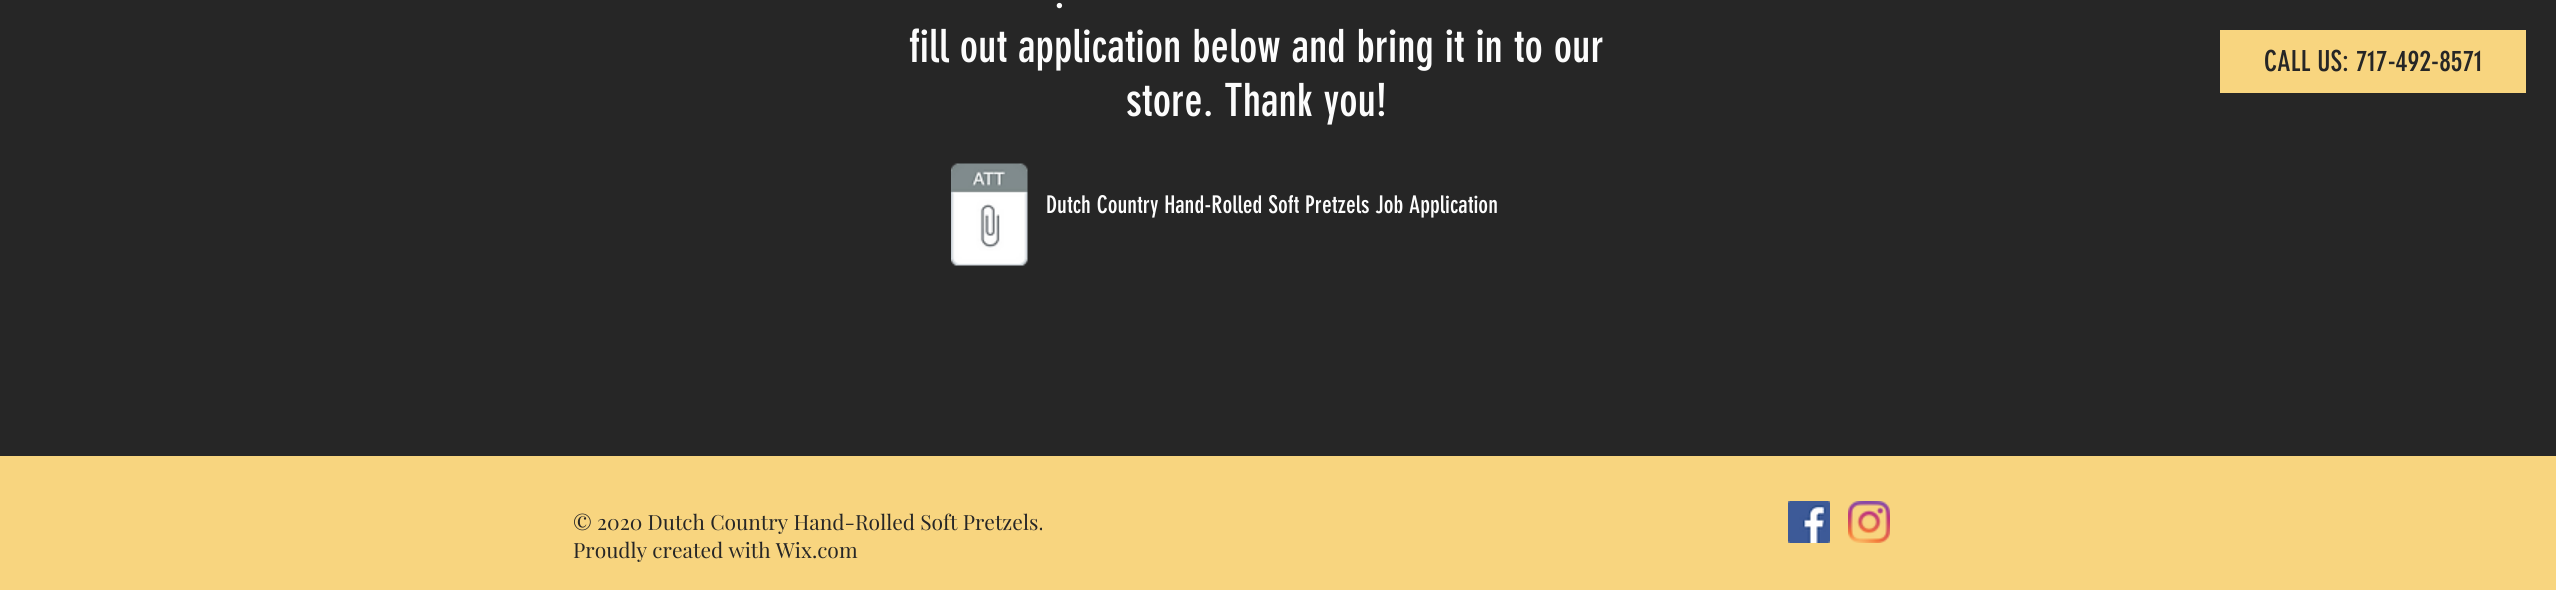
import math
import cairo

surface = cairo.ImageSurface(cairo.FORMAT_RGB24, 2556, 590)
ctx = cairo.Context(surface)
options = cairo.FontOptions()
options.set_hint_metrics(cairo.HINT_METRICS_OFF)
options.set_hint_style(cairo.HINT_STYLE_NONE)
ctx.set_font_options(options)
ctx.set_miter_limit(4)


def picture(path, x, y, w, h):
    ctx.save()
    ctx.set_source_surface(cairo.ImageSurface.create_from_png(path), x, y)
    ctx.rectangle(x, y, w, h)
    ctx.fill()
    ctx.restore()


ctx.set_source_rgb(0.149, 0.149, 0.149)
ctx.paint()
ctx.select_font_face("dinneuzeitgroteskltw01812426")
ctx.set_font_size(45)
ctx.set_source_rgb(0.988, 0.988, 0.988)
ctx.move_to(1054, 8)
ctx.show_text(".")
ctx.move_to(909, 62)
ctx.show_text("fill out application below and bring it in to our")
ctx.move_to(1126, 116)
ctx.show_text("store. Thank you!")
picture("img1.png", 951, 163, 77, 103)
ctx.set_font_size(24)
ctx.move_to(1046, 213)
ctx.show_text("Dutch Country Hand-Rolled Soft Pretzels Job Application")
ctx.set_source_rgb(0.969, 0.835, 0.498)
ctx.rectangle(2220, 30, 306, 63)
ctx.fill()
ctx.set_font_size(28.5)
ctx.set_source_rgb(0.149, 0.149, 0.149)
ctx.move_to(2264, 71)
ctx.show_text("CALL US: 717-492-8571")
ctx.set_source_rgb(0.969, 0.835, 0.498)
ctx.rectangle(0, 456, 2556, 134)
ctx.fill()
ctx.select_font_face("Playfair Display")
ctx.set_font_size(21)
ctx.set_source_rgb(0.149, 0.149, 0.149)
ctx.move_to(573, 530)
ctx.show_text("© 2020 Dutch Country Hand-Rolled Soft Pretzels.")
ctx.move_to(573, 558)
ctx.show_text("Proudly created with Wix.com")
picture("img2.png", 1788, 501, 42, 42)
picture("img3.png", 1848, 501, 42, 42)
surface.write_to_png("page.png")
